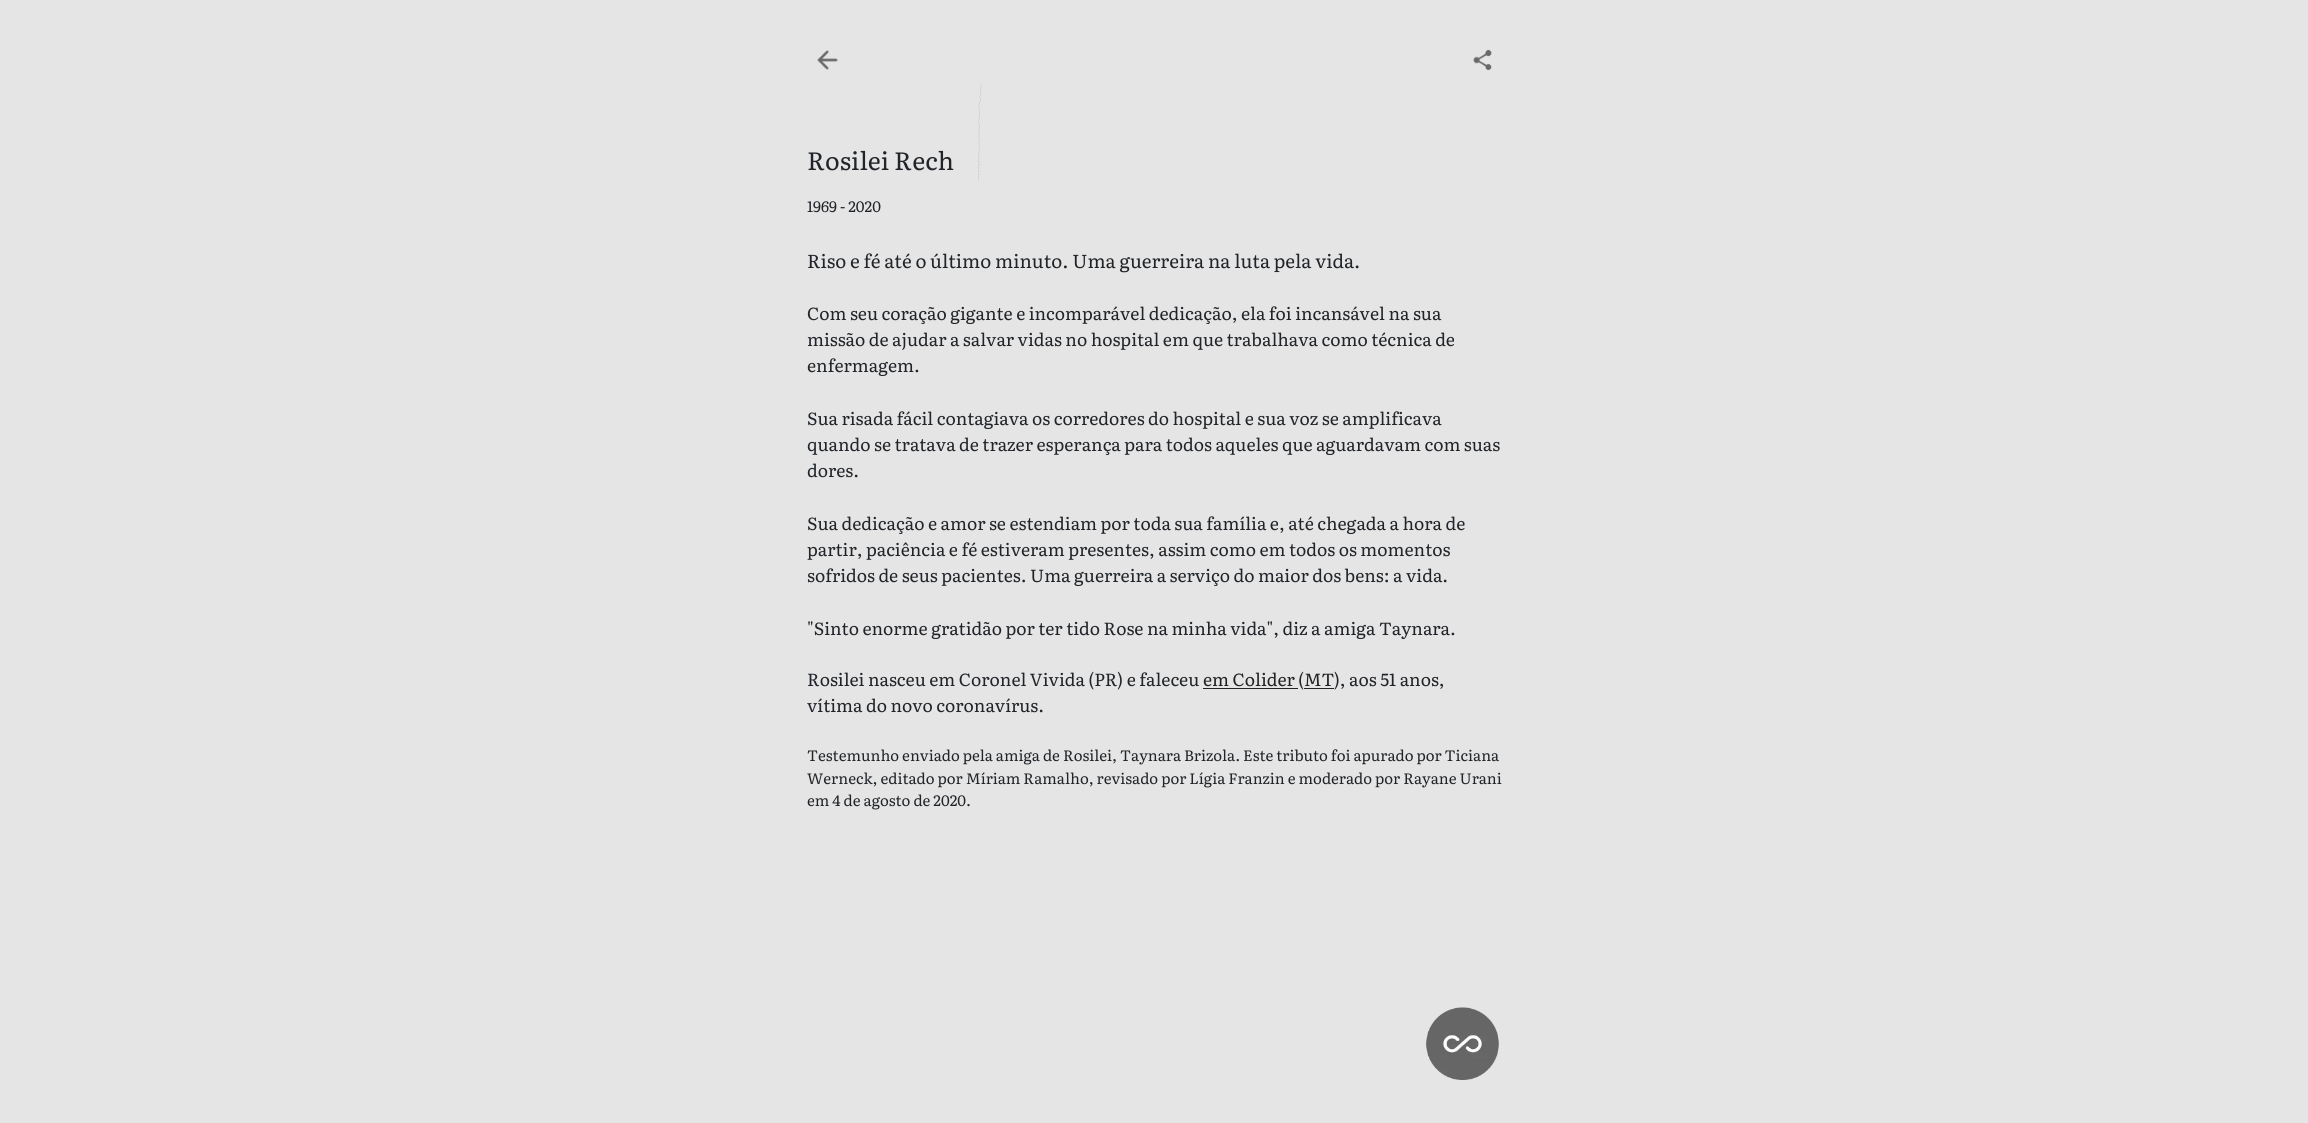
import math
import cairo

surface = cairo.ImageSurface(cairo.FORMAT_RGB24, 2308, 1123)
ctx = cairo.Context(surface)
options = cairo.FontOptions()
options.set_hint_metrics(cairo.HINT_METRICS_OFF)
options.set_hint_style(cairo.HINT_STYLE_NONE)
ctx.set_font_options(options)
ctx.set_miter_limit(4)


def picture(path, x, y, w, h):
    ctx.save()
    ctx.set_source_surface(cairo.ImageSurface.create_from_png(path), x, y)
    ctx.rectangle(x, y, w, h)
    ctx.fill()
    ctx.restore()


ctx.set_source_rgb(0.898, 0.898, 0.898)
ctx.paint()
picture("img1.png", 817, 50, 21, 20)
picture("img2.png", 1473, 50, 19, 20)
ctx.select_font_face("Literata")
ctx.set_font_size(25)
ctx.set_source_rgb(0.129, 0.145, 0.161)
ctx.move_to(807, 170)
ctx.show_text("Rosilei Rech")
picture("img3.png", 977, 84, 5, 97)
ctx.set_font_size(15)
ctx.move_to(807, 212)
ctx.show_text("1969 - 2020")
ctx.set_font_size(18.75)
ctx.move_to(807, 268)
ctx.show_text("Riso e fé até o último minuto. Uma guerreira na luta pela vida.")
ctx.set_font_size(17.5)
ctx.move_to(807, 320)
ctx.show_text("Com seu coração gigante e incomparável dedicação, ela foi incansável na sua")
ctx.move_to(807, 346)
ctx.show_text("missão de ajudar a salvar vidas no hospital em que trabalhava como técnica de")
ctx.move_to(807, 372)
ctx.show_text("enfermagem.")
ctx.move_to(807, 425)
ctx.show_text("Sua risada fácil contagiava os corredores do hospital e sua voz se amplificava")
ctx.move_to(807, 451)
ctx.show_text("quando se tratava de trazer esperança para todos aqueles que aguardavam com suas")
ctx.move_to(807, 477)
ctx.show_text("dores.")
ctx.move_to(807, 530)
ctx.show_text("Sua dedicação e amor se estendiam por toda sua família e, até chegada a hora de")
ctx.move_to(807, 556)
ctx.show_text("partir, paciência e fé estiveram presentes, assim como em todos os momentos")
ctx.move_to(807, 582)
ctx.show_text("sofridos de seus pacientes. Uma guerreira a serviço do maior dos bens: a vida.")
ctx.move_to(807, 635)
ctx.show_text("\"Sinto enorme gratidão por ter tido Rose na minha vida\", diz a amiga Taynara.")
ctx.move_to(807, 686)
ctx.show_text("Rosilei nasceu em Coronel Vivida (PR) e faleceu")
ctx.set_source_rgb(0.133, 0.133, 0.133)
ctx.move_to(1203, 686)
ctx.show_text("em Colider")
ctx.rectangle(1203, 688, 95, 1)
ctx.fill()
ctx.set_source_rgb(0.129, 0.145, 0.161)
ctx.move_to(1298, 686)
ctx.show_text("(")
ctx.set_source_rgb(0.133, 0.133, 0.133)
ctx.move_to(1304, 686)
ctx.show_text("MT")
ctx.rectangle(1304, 688, 30, 1)
ctx.fill()
ctx.set_source_rgb(0.129, 0.145, 0.161)
ctx.move_to(1334, 686)
ctx.show_text("), aos 51 anos,")
ctx.move_to(807, 712)
ctx.show_text("vítima do novo coronavírus.")
ctx.set_font_size(15)
ctx.move_to(807, 761)
ctx.show_text("Testemunho enviado pela amiga de Rosilei, Taynara Brizola. Este tributo foi apurado por Ticiana")
ctx.move_to(807, 784)
ctx.show_text("Werneck, editado por Míriam Ramalho, revisado por Lígia Franzin e moderado por Rayane Urani")
ctx.move_to(807, 806)
ctx.show_text("em 4 de agosto de 2020.")
picture("img4.png", 1426, 1007, 73, 73)
surface.write_to_png("page.png")
